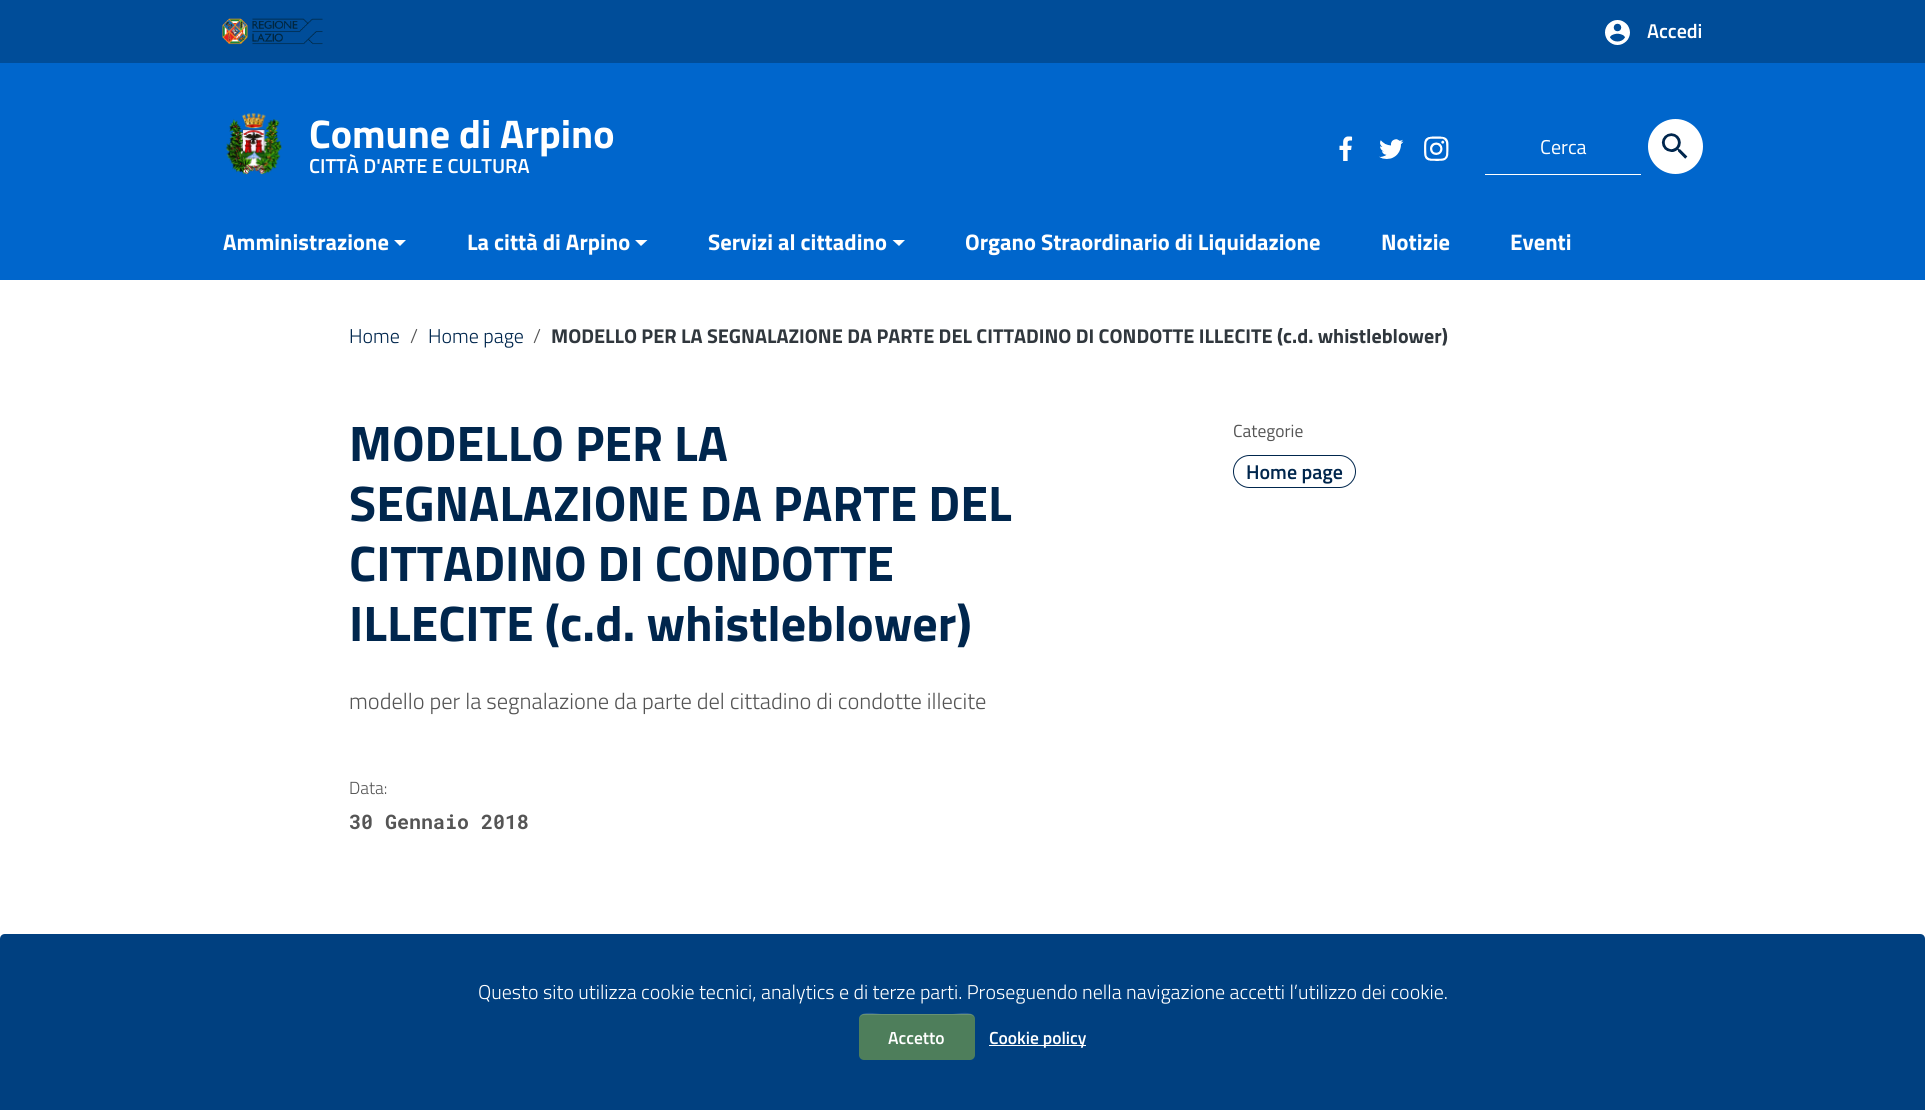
import math
import cairo

surface = cairo.ImageSurface(cairo.FORMAT_RGB24, 1925, 1110)
ctx = cairo.Context(surface)
options = cairo.FontOptions()
options.set_hint_metrics(cairo.HINT_METRICS_OFF)
options.set_hint_style(cairo.HINT_STYLE_NONE)
ctx.set_font_options(options)
ctx.set_miter_limit(4)


def round_rect(x, y, w, h, r):
    ctx.new_sub_path()
    for i, (u, v) in enumerate([(x + w - r, y + h - r), (x + r, y + h - r), (x + r, y + r), (x + w - r, y + r)]):
        ctx.arc(u, v, r, i * math.pi / 2, (i + 1) * math.pi / 2)
    ctx.close_path()


def picture(path, x, y, w, h):
    ctx.save()
    ctx.set_source_surface(cairo.ImageSurface.create_from_png(path), x, y)
    ctx.rectangle(x, y, w, h)
    ctx.fill()
    ctx.restore()


ctx.set_source_rgb(1, 1, 1)
ctx.paint()
ctx.set_source_rgb(0, 0.4, 0.8)
ctx.rectangle(0, 63, 1925, 217)
ctx.fill()
ctx.set_source_rgb(0, 0.302, 0.6)
ctx.rectangle(0, 0, 1925, 63)
ctx.fill()
picture("img1.png", 222, 18, 101, 27)
picture("img2.png", 1605, 20, 25, 25)
ctx.select_font_face("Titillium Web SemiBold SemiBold")
ctx.set_font_size(20)
ctx.set_source_rgb(1, 1, 1)
ctx.move_to(1647, 38)
ctx.show_text("Accedi")
picture("img3.png", 225, 113, 57, 62)
ctx.select_font_face("Titillium Web", cairo.FONT_SLANT_NORMAL, cairo.FONT_WEIGHT_BOLD)
ctx.set_font_size(40)
ctx.move_to(309, 148)
ctx.show_text("Comune di Arpino")
ctx.select_font_face("Titillium Web SemiBold SemiBold")
ctx.set_font_size(20.25)
ctx.move_to(309, 173)
ctx.show_text("CITTÀ D'ARTE E CULTURA")
picture("img4.png", 1339, 136, 14, 25)
picture("img5.png", 1379, 139, 25, 20)
picture("img6.png", 1424, 136, 25, 25)
ctx.rectangle(1485, 174, 156, 1)
ctx.fill()
ctx.select_font_face("Titillium Web")
ctx.set_font_size(20)
ctx.move_to(1540, 154)
ctx.show_text("Cerca")
ctx.new_path()
ctx.arc(1675.5, 146.5, 27.5, 0, 2 * math.pi)
ctx.fill()
picture("img7.png", 1661, 133, 27, 26)
ctx.select_font_face("Titillium Web", cairo.FONT_SLANT_NORMAL, cairo.FONT_WEIGHT_BOLD)
ctx.set_font_size(22.5)
ctx.move_to(223, 250)
ctx.show_text("Amministrazione")
ctx.new_path()
ctx.move_to(394, 240)
ctx.line_to(406, 240)
ctx.line_to(400, 246)
ctx.close_path()
ctx.fill()
ctx.move_to(467, 250)
ctx.show_text("La città di Arpino")
ctx.new_path()
ctx.move_to(635, 240)
ctx.line_to(647.5, 240)
ctx.line_to(641, 246)
ctx.close_path()
ctx.fill()
ctx.move_to(708, 250)
ctx.show_text("Servizi al cittadino")
ctx.new_path()
ctx.move_to(892.5, 240)
ctx.line_to(905, 240)
ctx.line_to(899, 246)
ctx.close_path()
ctx.fill()
ctx.move_to(965, 250)
ctx.show_text("Organo Straordinario di Liquidazione")
ctx.move_to(1381, 250)
ctx.show_text("Notizie")
ctx.move_to(1510, 250)
ctx.show_text("Eventi")
ctx.select_font_face("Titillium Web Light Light")
ctx.set_font_size(20)
ctx.set_source_rgb(0, 0.149, 0.302)
ctx.move_to(349, 343)
ctx.show_text("Home")
ctx.set_source_rgb(0.333, 0.333, 0.333)
ctx.move_to(410, 343)
ctx.show_text("/")
ctx.set_source_rgb(0, 0.149, 0.302)
ctx.move_to(428, 343)
ctx.show_text("Home page")
ctx.set_source_rgb(0.333, 0.333, 0.333)
ctx.move_to(533, 343)
ctx.show_text("/")
ctx.select_font_face("Titillium Web", cairo.FONT_SLANT_NORMAL, cairo.FONT_WEIGHT_BOLD)
ctx.set_source_rgb(0.188, 0.216, 0.239)
ctx.move_to(551, 343)
ctx.show_text("MODELLO PER LA SEGNALAZIONE DA PARTE DEL CITTADINO DI CONDOTTE ILLECITE (c.d. whistleblower)")
ctx.set_font_size(50)
ctx.set_source_rgb(0, 0.149, 0.302)
ctx.move_to(349, 461)
ctx.show_text("MODELLO PER LA")
ctx.move_to(349, 521)
ctx.show_text("SEGNALAZIONE DA PARTE DEL")
ctx.move_to(349, 581)
ctx.show_text("CITTADINO DI CONDOTTE")
ctx.move_to(349, 641)
ctx.show_text("ILLECITE (c.d. whistleblower)")
ctx.select_font_face("Titillium Web Light Light")
ctx.set_font_size(22.5)
ctx.set_source_rgb(0.333, 0.333, 0.333)
ctx.move_to(349, 709)
ctx.show_text("modello per la segnalazione da parte del cittadino di condotte illecite")
ctx.select_font_face("Titillium Web")
ctx.set_font_size(17.5)
ctx.move_to(1233, 437)
ctx.show_text("Categorie")
round_rect(1233.5, 455.5, 122, 32, 16)
ctx.set_source_rgb(0, 0.149, 0.302)
ctx.set_line_width(1)
ctx.stroke()
ctx.select_font_face("Titillium Web SemiBold SemiBold")
ctx.set_font_size(20)
ctx.move_to(1246, 479)
ctx.show_text("Home page")
ctx.select_font_face("Titillium Web Light Light")
ctx.set_font_size(17.5)
ctx.set_source_rgb(0.333, 0.333, 0.333)
ctx.move_to(349, 794)
ctx.show_text("Data:")
ctx.select_font_face("Roboto Mono", cairo.FONT_SLANT_NORMAL, cairo.FONT_WEIGHT_BOLD)
ctx.set_font_size(20)
ctx.move_to(349, 829)
ctx.show_text("30 Gennaio 2018")
picture("img8.png", 0, 938, 1925, 1)
ctx.set_source_rgb(0, 0.251, 0.502)
ctx.new_path()
ctx.move_to(5, 934)
ctx.line_to(1920, 934)
ctx.curve_to(1923, 934, 1925, 936, 1925, 939)
ctx.line_to(1925, 1110)
ctx.line_to(0, 1110)
ctx.line_to(0, 939)
ctx.curve_to(0, 936, 2, 934, 5, 934)
ctx.close_path()
ctx.fill()
ctx.select_font_face("Titillium Web Light Light")
ctx.set_source_rgb(1, 1, 1)
ctx.move_to(478, 999)
ctx.show_text("Questo sito utilizza cookie tecnici, analytics e di terze parti. Proseguendo nella navigazione accetti l’utilizzo dei cookie.")
ctx.set_source_rgb(0.306, 0.494, 0.357)
round_rect(859, 1014, 116, 46, 5)
ctx.fill()
ctx.set_source_rgba(1, 1, 1, 0.15)
ctx.new_path()
ctx.move_to(864, 1015)
ctx.line_to(970, 1015)
ctx.curve_to(973, 1015, 975, 1017, 975, 1020)
ctx.curve_to(975, 1009, 957, 1014, 952, 1014)
ctx.line_to(882, 1014)
ctx.curve_to(877, 1014, 859, 1009, 859, 1020)
ctx.curve_to(859, 1017, 861, 1015, 864, 1015)
ctx.close_path()
ctx.fill()
ctx.select_font_face("Titillium Web SemiBold SemiBold")
ctx.set_font_size(17.5)
ctx.set_source_rgb(1, 1, 1)
ctx.move_to(888, 1044)
ctx.show_text("Accetto")
ctx.rectangle(989, 1045, 97, 1)
ctx.fill()
ctx.move_to(989, 1044)
ctx.show_text("Cookie policy")
surface.write_to_png("page.png")
